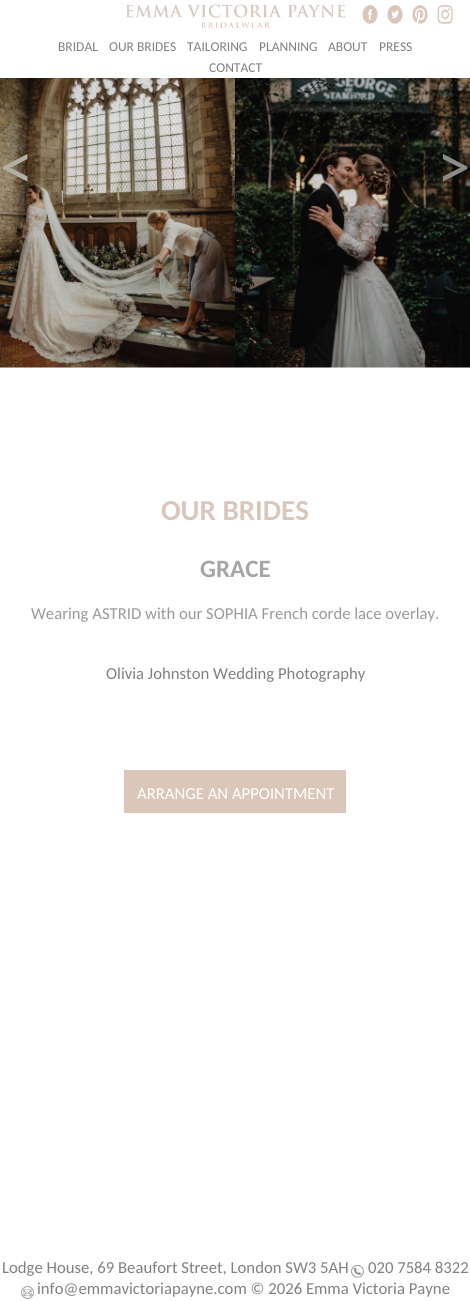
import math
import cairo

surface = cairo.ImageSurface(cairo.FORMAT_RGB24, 470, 1301)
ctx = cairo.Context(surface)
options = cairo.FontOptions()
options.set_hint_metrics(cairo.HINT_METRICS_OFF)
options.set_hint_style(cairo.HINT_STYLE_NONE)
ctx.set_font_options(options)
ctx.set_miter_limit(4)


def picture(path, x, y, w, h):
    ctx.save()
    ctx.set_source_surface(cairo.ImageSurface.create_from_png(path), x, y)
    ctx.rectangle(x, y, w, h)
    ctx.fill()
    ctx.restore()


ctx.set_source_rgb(1, 1, 1)
ctx.paint()
picture("img1.png", 125, 4, 221, 25)
picture("img2.png", 362, 5, 16, 19)
picture("img3.png", 387, 5, 16, 19)
picture("img4.png", 412, 5, 16, 19)
picture("img5.png", 437, 5, 16, 19)
ctx.select_font_face("Carlito")
ctx.set_font_size(13.5)
ctx.set_source_rgb(0.502, 0.502, 0.502)
ctx.move_to(58, 51)
ctx.show_text("BRIDAL")
ctx.move_to(109, 51)
ctx.show_text("OUR BRIDES")
ctx.move_to(187, 51)
ctx.show_text("TAILORING")
ctx.move_to(259, 51)
ctx.show_text("PLANNING")
ctx.move_to(328, 51)
ctx.show_text("ABOUT")
ctx.move_to(379, 51)
ctx.show_text("PRESS")
ctx.move_to(209, 72)
ctx.show_text("CONTACT")
picture("img6.png", 0, 78, 235, 290)
ctx.set_font_size(67)
ctx.set_source_rgb(0.71, 0.682, 0.635)
ctx.move_to(0, 189)
ctx.show_text("<")
picture("img7.png", 235, 78, 235, 290)
ctx.set_source_rgb(0.553, 0.545, 0.533)
ctx.move_to(437, 189)
ctx.show_text(">")
ctx.select_font_face("Carlito", cairo.FONT_SLANT_NORMAL, cairo.FONT_WEIGHT_BOLD)
ctx.set_font_size(29)
ctx.set_source_rgb(0.855, 0.78, 0.729)
ctx.move_to(161, 520)
ctx.show_text("OUR BRIDES")
ctx.set_font_size(25)
ctx.set_source_rgb(0.651, 0.647, 0.647)
ctx.move_to(200, 577)
ctx.show_text("GRACE")
ctx.select_font_face("Carlito")
ctx.set_font_size(16.7)
ctx.set_source_rgb(0.6, 0.6, 0.6)
ctx.move_to(31, 619)
ctx.show_text("Wearing ASTRID with our SOPHIA French corde lace overlay.")
ctx.set_source_rgb(0.502, 0.502, 0.502)
ctx.move_to(106, 679)
ctx.show_text("Olivia Johnston Wedding Photography")
ctx.set_source_rgb(0.855, 0.78, 0.729)
ctx.rectangle(124, 770, 222, 43)
ctx.fill()
ctx.set_source_rgb(1, 1, 1)
ctx.move_to(137, 799)
ctx.show_text("ARRANGE AN APPOINTMENT")
ctx.set_source_rgb(0.502, 0.502, 0.502)
ctx.move_to(2, 1273)
ctx.show_text("Lodge House, 69 Beaufort Street, London SW3 5AH")
picture("img8.png", 351, 1265, 13, 13)
ctx.move_to(368, 1273)
ctx.show_text("020 7584 8322")
picture("img9.png", 21, 1286, 13, 13)
ctx.move_to(37, 1294)
ctx.show_text("info@emmavictoriapayne.com © 2026 Emma Victoria Payne")
surface.write_to_png("page.png")
